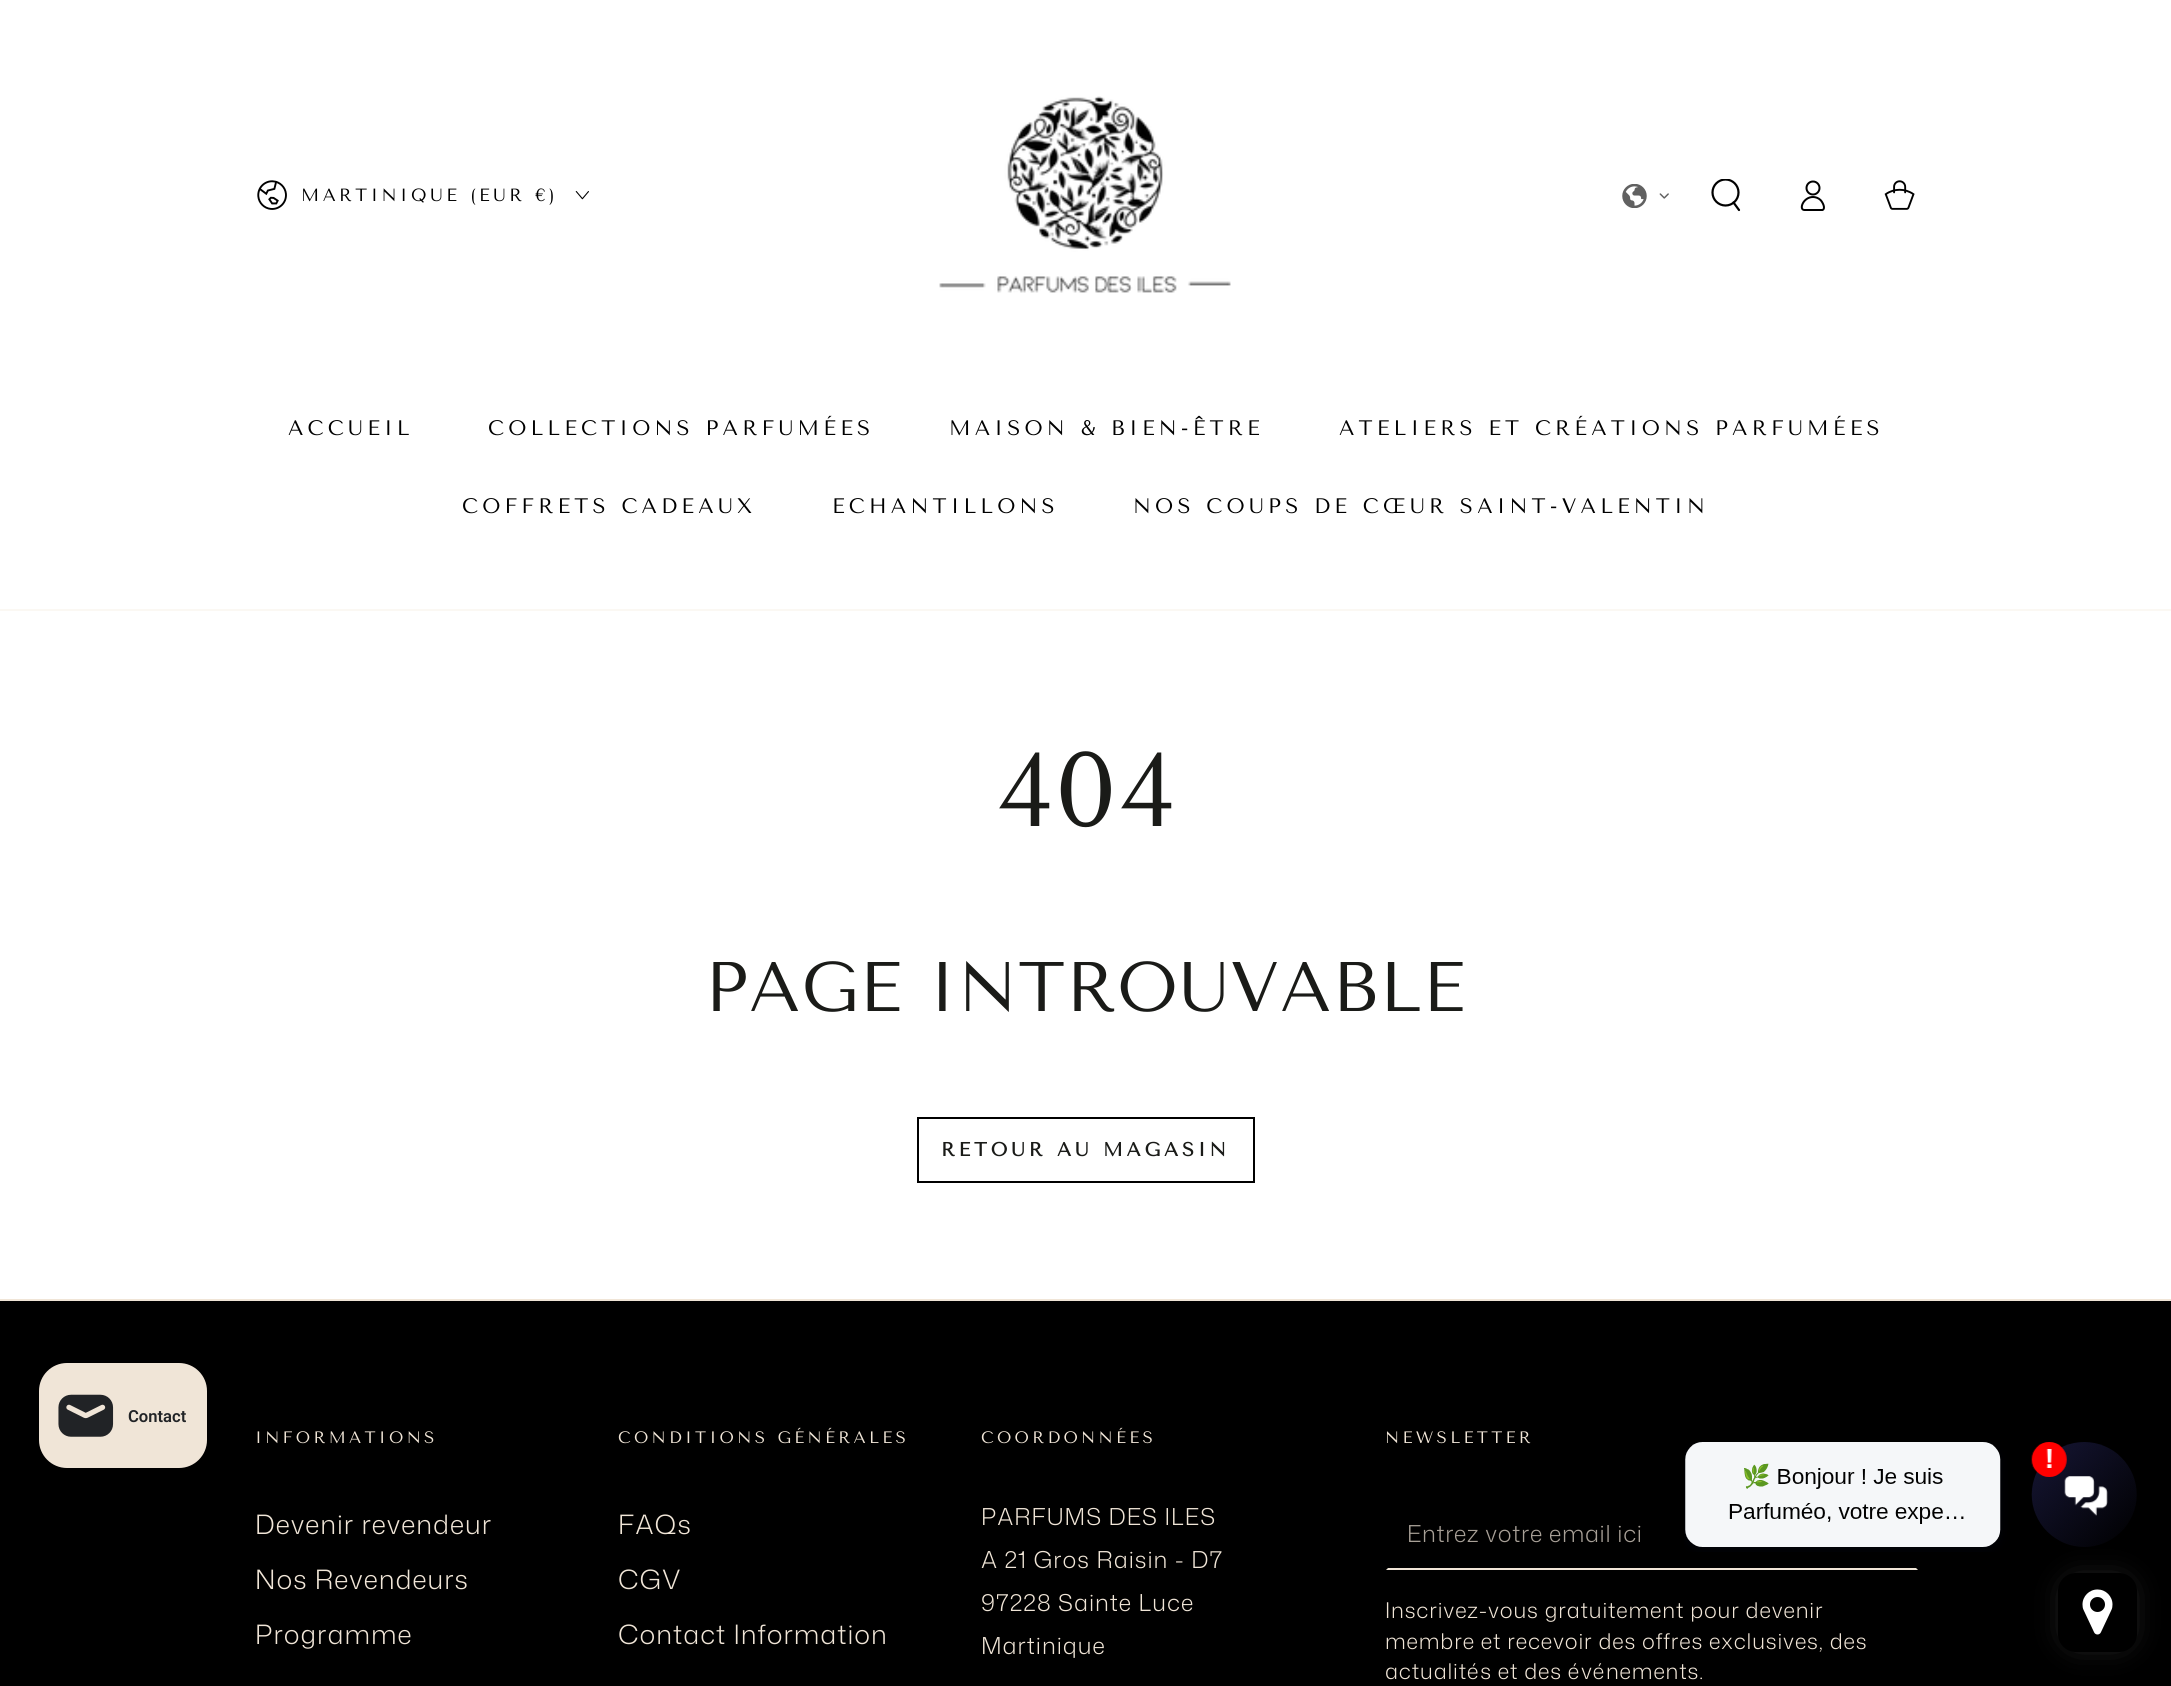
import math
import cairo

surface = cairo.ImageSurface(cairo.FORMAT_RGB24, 2171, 1686)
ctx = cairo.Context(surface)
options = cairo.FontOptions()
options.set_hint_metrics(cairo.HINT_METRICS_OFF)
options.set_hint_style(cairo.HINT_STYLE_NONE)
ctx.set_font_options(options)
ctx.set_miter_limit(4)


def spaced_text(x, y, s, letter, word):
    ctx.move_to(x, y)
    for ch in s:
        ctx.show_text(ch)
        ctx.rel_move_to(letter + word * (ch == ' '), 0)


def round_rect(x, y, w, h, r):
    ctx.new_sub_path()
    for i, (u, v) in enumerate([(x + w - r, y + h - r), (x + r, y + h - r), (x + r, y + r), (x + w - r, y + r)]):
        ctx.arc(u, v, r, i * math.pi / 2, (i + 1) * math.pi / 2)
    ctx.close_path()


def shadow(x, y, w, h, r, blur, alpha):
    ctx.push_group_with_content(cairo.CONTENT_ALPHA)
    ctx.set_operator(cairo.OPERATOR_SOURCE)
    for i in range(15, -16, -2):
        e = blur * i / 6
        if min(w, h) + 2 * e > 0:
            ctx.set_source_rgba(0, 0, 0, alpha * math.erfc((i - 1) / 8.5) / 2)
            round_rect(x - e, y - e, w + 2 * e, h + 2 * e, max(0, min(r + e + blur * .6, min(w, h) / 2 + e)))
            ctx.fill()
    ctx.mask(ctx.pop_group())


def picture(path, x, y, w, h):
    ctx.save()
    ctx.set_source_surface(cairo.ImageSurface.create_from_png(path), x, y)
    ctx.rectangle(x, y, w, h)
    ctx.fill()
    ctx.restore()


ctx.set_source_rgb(1, 1, 1)
ctx.paint()
ctx.set_source_rgb(0, 0, 0)
ctx.rectangle(0, 1301, 2171, 385)
ctx.fill()
ctx.set_source_rgb(0.941, 0.898, 0.843)
round_rect(39, 1363, 168, 105, 28)
ctx.fill()
picture("img1.png", 58, 1394, 56, 43)
ctx.select_font_face("Roboto SemiBold")
ctx.set_font_size(16.6)
ctx.set_source_rgb(0.129, 0.137, 0.149)
ctx.move_to(128, 1422)
ctx.show_text("Contact")
ctx.set_source_rgb(0.984, 0.969, 0.953)
ctx.new_path()
ctx.move_to(0, 609)
ctx.line_to(0, 611)
ctx.line_to(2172, 611)
ctx.line_to(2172, 2)
ctx.line_to(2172, 609)
ctx.close_path()
ctx.fill()
picture("img2.png", 257, 180, 30, 30)
ctx.select_font_face("Tenor Sans")
ctx.set_font_size(17.7)
ctx.set_source_rgb(0, 0, 0)
spaced_text(301, 201, "MARTINIQUE (EUR €)", 3.5, 0)
picture("img3.png", 575, 191, 14, 9)
picture("img4.png", 939, 96, 292, 197)
picture("img5.png", 1622, 184, 25, 24)
picture("img6.png", 1659, 193, 10, 6)
ctx.save()
ctx.rectangle(1710, 179, 33, 33)
ctx.clip()
ctx.arc(1725.5, 192.5, 13, 0, 2 * math.pi)
ctx.set_line_width(2.2)
ctx.stroke()
ctx.restore()
ctx.new_path()
ctx.move_to(1733.5, 202.5)
ctx.line_to(1739, 210)
ctx.set_line_width(2.2)
ctx.set_line_cap(cairo.LINE_CAP_ROUND)
ctx.stroke()
ctx.new_path()
ctx.move_to(1813, 197)
ctx.curve_to(1803, 197, 1798.5, 210, 1804.5, 210)
ctx.line_to(1822.5, 210)
ctx.curve_to(1826, 208.5, 1822.5, 202, 1820.5, 200)
ctx.curve_to(1818.5, 198, 1815.5, 197, 1813, 197)
ctx.close_path()
ctx.set_line_width(2)
ctx.set_line_cap(cairo.LINE_CAP_BUTT)
ctx.stroke()
ctx.arc(1813, 188, 6.5, 0, 2 * math.pi)
ctx.stroke()
picture("img7.png", 1884, 180, 31, 30)
ctx.set_font_size(21)
spaced_text(288, 435, "ACCUEIL", 4.2, 0)
spaced_text(488, 435, "COLLECTIONS PARFUMÉES", 4.2, 0)
spaced_text(949, 435, "MAISON & BIEN-ÊTRE", 4.2, 0)
spaced_text(1339, 435, "ATELIERS ET CRÉATIONS PARFUMÉES", 4.2, 0)
spaced_text(462, 513, "COFFRETS CADEAUX", 4.2, 0)
spaced_text(832, 513, "ECHANTILLONS", 4.2, 0)
spaced_text(1133, 513, "NOS COUPS DE CŒUR SAINT-VALENTIN", 4.2, 0)
ctx.set_font_size(105)
ctx.set_source_rgb(0.102, 0.106, 0.094)
spaced_text(996, 826, "404", 1, 0)
ctx.set_font_size(70)
spaced_text(705, 1011, "PAGE INTROUVABLE", 1, 0)
ctx.rectangle(918, 1118, 336, 64)
ctx.set_source_rgb(0, 0, 0)
ctx.stroke()
ctx.select_font_face("Tenor Sans", cairo.FONT_SLANT_NORMAL, cairo.FONT_WEIGHT_BOLD)
ctx.set_font_size(19.25)
ctx.set_source_rgb(0.102, 0.106, 0.094)
spaced_text(941, 1156, "RETOUR AU MAGASIN", 3.8, 0)
ctx.set_source_rgb(0.941, 0.898, 0.843)
ctx.rectangle(0, 1299, 2171, 2)
ctx.fill()
ctx.select_font_face("Tenor Sans")
ctx.set_font_size(16.6)
spaced_text(255, 1443, "INFORMATIONS", 3.3, 0)
ctx.select_font_face("Mona Sans Light")
ctx.set_font_size(26.6)
spaced_text(255, 1534, "Devenir revendeur", 1, 0)
spaced_text(255, 1589, "Nos Revendeurs", 1, 0)
spaced_text(255, 1644, "Programme", 1, 0)
ctx.select_font_face("Tenor Sans")
ctx.set_font_size(16.6)
spaced_text(618, 1443, "CONDITIONS GÉNÉRALES", 3.3, 0)
ctx.select_font_face("Mona Sans Light")
ctx.set_font_size(26.6)
spaced_text(618, 1534, "FAQs", 1, 0)
spaced_text(618, 1589, "CGV", 1, 0)
spaced_text(618, 1644, "Contact Information", 1, 0)
ctx.select_font_face("Tenor Sans")
ctx.set_font_size(16.6)
spaced_text(981, 1443, "COORDONNÉES", 3.3, 0)
ctx.select_font_face("Mona Sans Light")
ctx.set_font_size(23.25)
spaced_text(981, 1525, "PARFUMS DES ILES", 1, 0)
spaced_text(981, 1568, "A 21 Gros Raisin - D7", 1, 0)
spaced_text(981, 1611, "97228 Sainte Luce", 1, 0)
spaced_text(981, 1654, "Martinique", 1, 0)
ctx.select_font_face("Tenor Sans")
ctx.set_font_size(16.6)
spaced_text(1385, 1443, "NEWSLETTER", 3.3, 0)
ctx.new_path()
ctx.move_to(1918, 1570)
ctx.line_to(1386, 1570)
ctx.line_to(1388, 1568)
ctx.line_to(1916, 1568)
ctx.close_path()
ctx.fill()
ctx.select_font_face("Mona Sans Light")
ctx.set_font_size(23.25)
ctx.set_source_rgb(0.659, 0.627, 0.592)
spaced_text(1407, 1542, "Entrez votre email ici", 0.7, 0)
ctx.set_font_size(21.6)
ctx.set_source_rgb(0.941, 0.898, 0.843)
spaced_text(1385, 1618, "Inscrivez-vous gratuitement pour devenir", 0.85, 0)
spaced_text(1385, 1649, "membre et recevoir des offres exclusives, des", 0.85, 0)
spaced_text(1385, 1679, "actualités et des événements.", 0.85, 0)
picture("img8.png", 1684, 1442, 453, 110)
ctx.set_source_rgb(0.353, 0.353, 0.353)
shadow(2074, 1589, 47, 47, 2, 16, 1)
ctx.set_source_rgb(0, 0, 0)
round_rect(2058, 1573, 79, 79, 18)
ctx.fill()
picture("img9.png", 2082, 1589, 31, 46)
surface.write_to_png("page.png")
